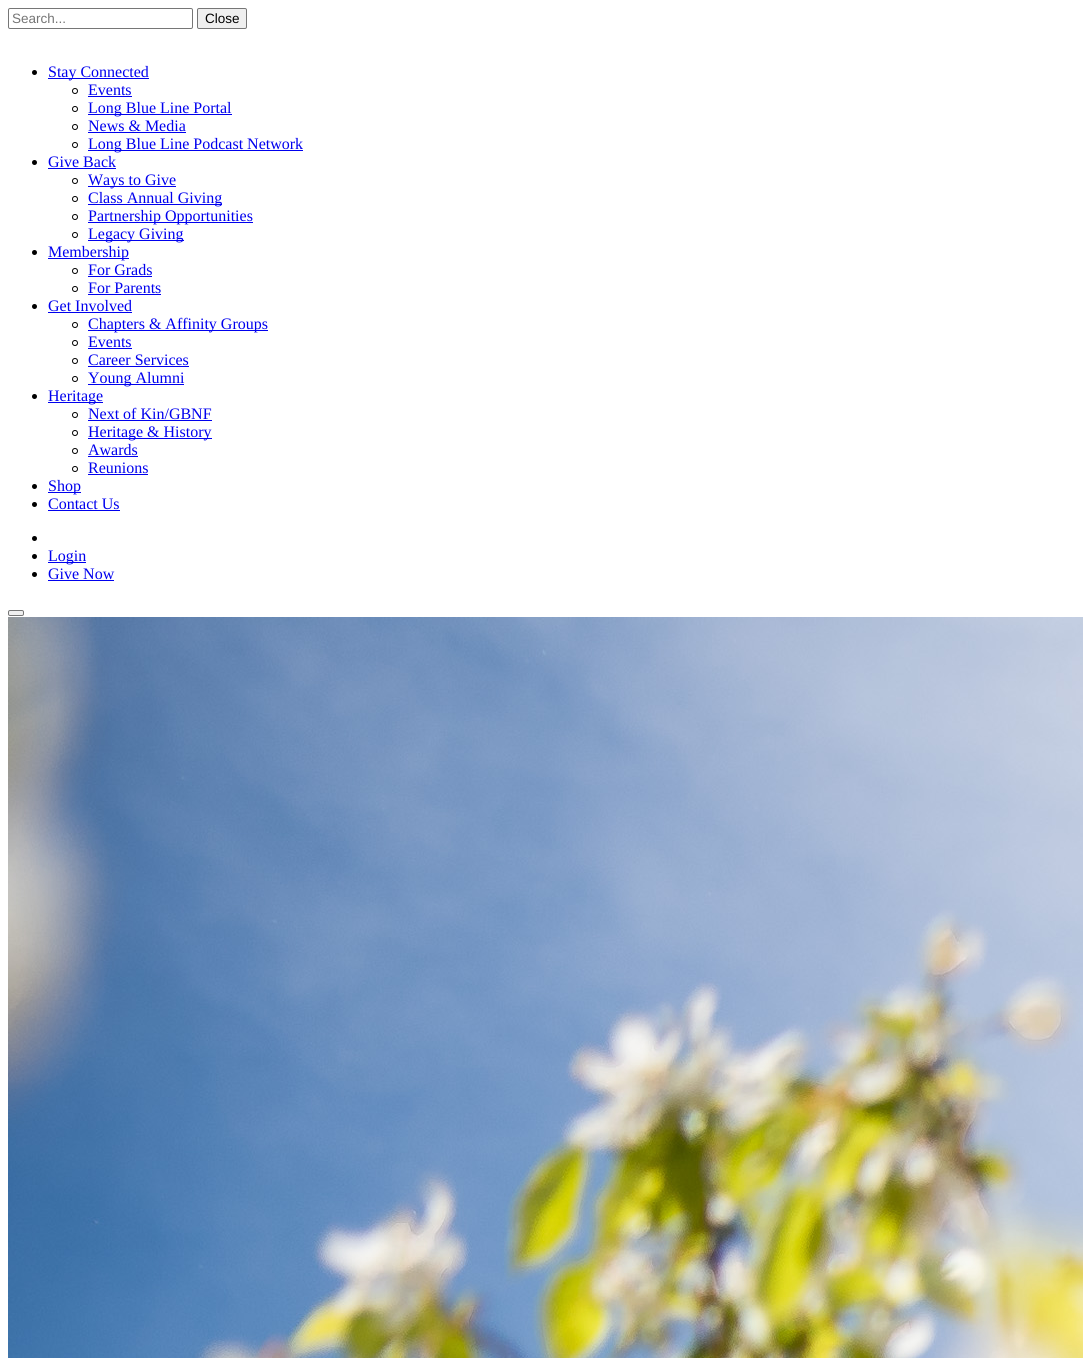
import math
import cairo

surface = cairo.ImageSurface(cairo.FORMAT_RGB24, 1083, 1358)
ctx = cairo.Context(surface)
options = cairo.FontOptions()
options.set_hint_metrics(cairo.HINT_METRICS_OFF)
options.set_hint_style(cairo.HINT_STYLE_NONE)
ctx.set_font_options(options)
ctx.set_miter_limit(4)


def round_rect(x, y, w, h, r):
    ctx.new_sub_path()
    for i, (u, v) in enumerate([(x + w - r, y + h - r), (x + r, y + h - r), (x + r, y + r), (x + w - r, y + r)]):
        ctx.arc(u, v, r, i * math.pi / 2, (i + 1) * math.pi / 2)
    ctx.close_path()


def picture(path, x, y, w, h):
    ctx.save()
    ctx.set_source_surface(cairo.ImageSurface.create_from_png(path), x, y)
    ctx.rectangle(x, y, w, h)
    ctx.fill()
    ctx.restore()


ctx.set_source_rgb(1, 1, 1)
ctx.paint()
round_rect(8.5, 8.5, 184, 20, 1.5)
ctx.set_source_rgb(0.463, 0.463, 0.463)
ctx.set_line_width(1)
ctx.stroke()
ctx.select_font_face("Liberation Sans")
ctx.set_font_size(13.5)
ctx.set_source_rgb(0.459, 0.459, 0.459)
ctx.move_to(12, 23)
ctx.show_text("Search...")
ctx.set_source_rgb(0.937, 0.937, 0.937)
round_rect(197.5, 8.5, 49, 20, 1.5)
ctx.fill_preserve()
ctx.set_source_rgb(0.463, 0.463, 0.463)
ctx.stroke()
ctx.set_source_rgb(0, 0, 0)
ctx.move_to(205, 23)
ctx.show_text("Close")
ctx.new_path()
ctx.arc(34.5, 72.5, 2.5, 0, 2 * math.pi)
ctx.fill()
ctx.set_source_rgb(0, 0, 0.933)
ctx.rectangle(48, 78, 101, 1)
ctx.fill()
ctx.select_font_face("Liberation Serif")
ctx.set_font_size(16)
ctx.move_to(48, 77)
ctx.show_text("Stay Connected")
ctx.new_path()
ctx.arc(75, 91, 2.5, 0, 2 * math.pi)
ctx.set_source_rgb(0, 0, 0)
ctx.stroke()
ctx.set_source_rgb(0, 0, 0.933)
ctx.move_to(88, 95)
ctx.show_text("Events")
ctx.rectangle(88, 96, 44, 1)
ctx.fill()
ctx.arc(75, 109, 2.5, 0, 2 * math.pi)
ctx.set_source_rgb(0, 0, 0)
ctx.stroke()
ctx.set_source_rgb(0, 0, 0.933)
ctx.rectangle(88, 114, 144, 1)
ctx.fill()
ctx.move_to(88, 113)
ctx.show_text("Long Blue Line Portal")
ctx.new_path()
ctx.arc(75, 127, 2.5, 0, 2 * math.pi)
ctx.set_source_rgb(0, 0, 0)
ctx.stroke()
ctx.set_source_rgb(0, 0, 0.933)
ctx.move_to(88, 131)
ctx.show_text("News & Media")
ctx.rectangle(88, 132, 98, 1)
ctx.fill()
ctx.arc(75, 145, 2.5, 0, 2 * math.pi)
ctx.set_source_rgb(0, 0, 0)
ctx.stroke()
ctx.set_source_rgb(0, 0, 0.933)
ctx.rectangle(88, 150, 215, 1)
ctx.fill()
ctx.move_to(88, 149)
ctx.show_text("Long Blue Line Podcast Network")
ctx.set_source_rgb(0, 0, 0)
ctx.new_path()
ctx.arc(34.5, 162.5, 2.5, 0, 2 * math.pi)
ctx.fill()
ctx.set_source_rgb(0, 0, 0.933)
ctx.move_to(48, 167)
ctx.show_text("Give Back")
ctx.rectangle(48, 168, 68, 1)
ctx.fill()
ctx.arc(75, 181, 2.5, 0, 2 * math.pi)
ctx.set_source_rgb(0, 0, 0)
ctx.stroke()
ctx.set_source_rgb(0, 0, 0.933)
ctx.rectangle(88, 186, 88, 1)
ctx.fill()
ctx.move_to(88, 185)
ctx.show_text("Ways to Give")
ctx.new_path()
ctx.arc(75, 199, 2.5, 0, 2 * math.pi)
ctx.set_source_rgb(0, 0, 0)
ctx.stroke()
ctx.set_source_rgb(0, 0, 0.933)
ctx.rectangle(88, 204, 134, 1)
ctx.fill()
ctx.move_to(88, 203)
ctx.show_text("Class Annual Giving")
ctx.new_path()
ctx.arc(75, 217, 2.5, 0, 2 * math.pi)
ctx.set_source_rgb(0, 0, 0)
ctx.stroke()
ctx.set_source_rgb(0, 0, 0.933)
ctx.rectangle(88, 222, 165, 1)
ctx.fill()
ctx.move_to(88, 221)
ctx.show_text("Partnership Opportunities")
ctx.new_path()
ctx.arc(75, 235, 2.5, 0, 2 * math.pi)
ctx.set_source_rgb(0, 0, 0)
ctx.stroke()
ctx.set_source_rgb(0, 0, 0.933)
ctx.rectangle(88, 240, 96, 1)
ctx.fill()
ctx.move_to(88, 239)
ctx.show_text("Legacy Giving")
ctx.set_source_rgb(0, 0, 0)
ctx.new_path()
ctx.arc(34.5, 252.5, 2.5, 0, 2 * math.pi)
ctx.fill()
ctx.set_source_rgb(0, 0, 0.933)
ctx.rectangle(48, 258, 81, 1)
ctx.fill()
ctx.move_to(48, 257)
ctx.show_text("Membership")
ctx.new_path()
ctx.arc(75, 271, 2.5, 0, 2 * math.pi)
ctx.set_source_rgb(0, 0, 0)
ctx.stroke()
ctx.set_source_rgb(0, 0, 0.933)
ctx.move_to(88, 275)
ctx.show_text("For Grads")
ctx.rectangle(88, 276, 64, 1)
ctx.fill()
ctx.arc(75, 289, 2.5, 0, 2 * math.pi)
ctx.set_source_rgb(0, 0, 0)
ctx.stroke()
ctx.set_source_rgb(0, 0, 0.933)
ctx.move_to(88, 293)
ctx.show_text("For Parents")
ctx.rectangle(88, 294, 73, 1)
ctx.fill()
ctx.set_source_rgb(0, 0, 0)
ctx.arc(34.5, 306.5, 2.5, 0, 2 * math.pi)
ctx.fill()
ctx.set_source_rgb(0, 0, 0.933)
ctx.move_to(48, 311)
ctx.show_text("Get Involved")
ctx.rectangle(48, 312, 84, 1)
ctx.fill()
ctx.arc(75, 325, 2.5, 0, 2 * math.pi)
ctx.set_source_rgb(0, 0, 0)
ctx.stroke()
ctx.set_source_rgb(0, 0, 0.933)
ctx.rectangle(88, 330, 180, 1)
ctx.fill()
ctx.move_to(88, 329)
ctx.show_text("Chapters & Affinity Groups")
ctx.new_path()
ctx.arc(75, 343, 2.5, 0, 2 * math.pi)
ctx.set_source_rgb(0, 0, 0)
ctx.stroke()
ctx.set_source_rgb(0, 0, 0.933)
ctx.move_to(88, 347)
ctx.show_text("Events")
ctx.rectangle(88, 348, 44, 1)
ctx.fill()
ctx.arc(75, 361, 2.5, 0, 2 * math.pi)
ctx.set_source_rgb(0, 0, 0)
ctx.stroke()
ctx.set_source_rgb(0, 0, 0.933)
ctx.move_to(88, 365)
ctx.show_text("Career Services")
ctx.rectangle(88, 366, 101, 1)
ctx.fill()
ctx.arc(75, 379, 2.5, 0, 2 * math.pi)
ctx.set_source_rgb(0, 0, 0)
ctx.stroke()
ctx.set_source_rgb(0, 0, 0.933)
ctx.rectangle(88, 384, 96, 1)
ctx.fill()
ctx.move_to(88, 383)
ctx.show_text("Young Alumni")
ctx.set_source_rgb(0, 0, 0)
ctx.new_path()
ctx.arc(34.5, 396.5, 2.5, 0, 2 * math.pi)
ctx.fill()
ctx.set_source_rgb(0, 0, 0.933)
ctx.rectangle(48, 402, 55, 1)
ctx.fill()
ctx.move_to(48, 401)
ctx.show_text("Heritage")
ctx.new_path()
ctx.arc(75, 415, 2.5, 0, 2 * math.pi)
ctx.set_source_rgb(0, 0, 0)
ctx.stroke()
ctx.set_source_rgb(0, 0, 0.933)
ctx.move_to(88, 419)
ctx.show_text("Next of Kin/GBNF")
ctx.rectangle(88, 420, 124, 1)
ctx.fill()
ctx.arc(75, 433, 2.5, 0, 2 * math.pi)
ctx.set_source_rgb(0, 0, 0)
ctx.stroke()
ctx.set_source_rgb(0, 0, 0.933)
ctx.rectangle(88, 438, 124, 1)
ctx.fill()
ctx.move_to(88, 437)
ctx.show_text("Heritage & History")
ctx.new_path()
ctx.arc(75, 451, 2.5, 0, 2 * math.pi)
ctx.set_source_rgb(0, 0, 0)
ctx.stroke()
ctx.set_source_rgb(0, 0, 0.933)
ctx.move_to(88, 455)
ctx.show_text("Awards")
ctx.rectangle(88, 456, 50, 1)
ctx.fill()
ctx.arc(75, 469, 2.5, 0, 2 * math.pi)
ctx.set_source_rgb(0, 0, 0)
ctx.stroke()
ctx.set_source_rgb(0, 0, 0.933)
ctx.move_to(88, 473)
ctx.show_text("Reunions")
ctx.rectangle(88, 474, 60, 1)
ctx.fill()
ctx.set_source_rgb(0, 0, 0)
ctx.arc(34.5, 486.5, 2.5, 0, 2 * math.pi)
ctx.fill()
ctx.set_source_rgb(0, 0, 0.933)
ctx.rectangle(48, 492, 33, 1)
ctx.fill()
ctx.move_to(48, 491)
ctx.show_text("Shop")
ctx.set_source_rgb(0, 0, 0)
ctx.new_path()
ctx.arc(34.5, 504.5, 2.5, 0, 2 * math.pi)
ctx.fill()
ctx.set_source_rgb(0, 0, 0.933)
ctx.move_to(48, 509)
ctx.show_text("Contact Us")
ctx.rectangle(48, 510, 72, 1)
ctx.fill()
ctx.set_source_rgb(0, 0, 0)
ctx.arc(34.5, 538.5, 2.5, 0, 2 * math.pi)
ctx.fill()
ctx.arc(34.5, 556.5, 2.5, 0, 2 * math.pi)
ctx.fill()
ctx.set_source_rgb(0, 0, 0.933)
ctx.rectangle(48, 562, 38, 1)
ctx.fill()
ctx.move_to(48, 561)
ctx.show_text("Login")
ctx.set_source_rgb(0, 0, 0)
ctx.new_path()
ctx.arc(34.5, 574.5, 2.5, 0, 2 * math.pi)
ctx.fill()
ctx.set_source_rgb(0, 0, 0.933)
ctx.move_to(48, 579)
ctx.show_text("Give Now")
ctx.rectangle(48, 580, 66, 1)
ctx.fill()
ctx.set_source_rgb(0.937, 0.937, 0.937)
round_rect(8.5, 610.5, 15, 5, 1.5)
ctx.fill_preserve()
ctx.set_source_rgb(0.463, 0.463, 0.463)
ctx.stroke()
picture("img1.png", 8, 617, 1075, 741)
surface.write_to_png("page.png")
